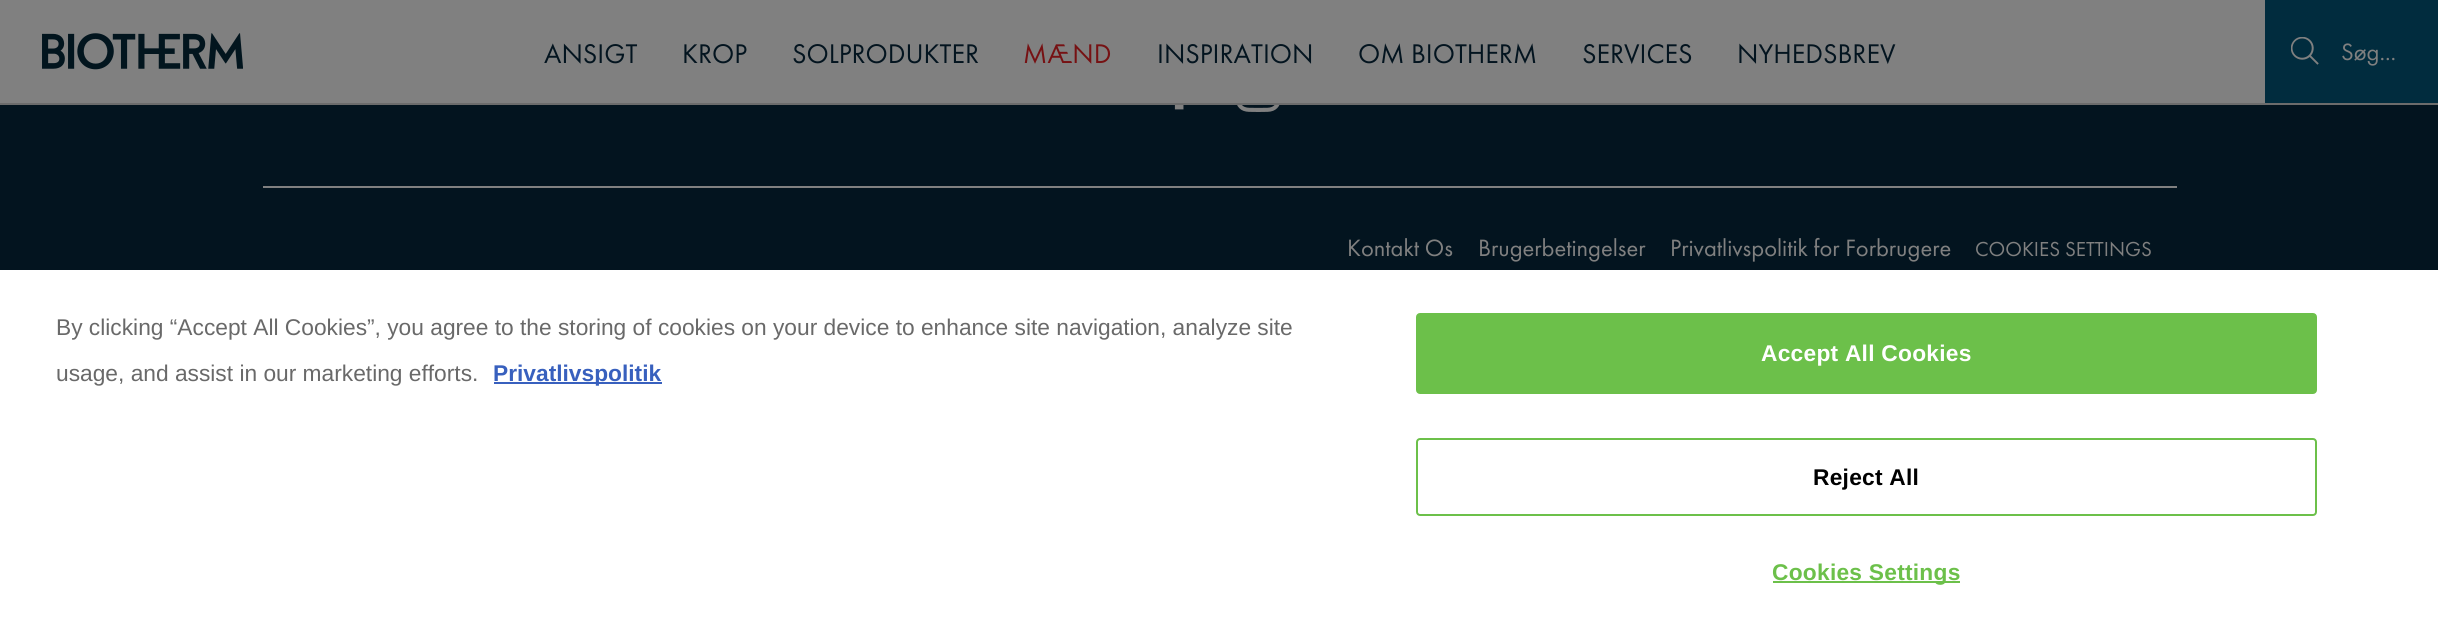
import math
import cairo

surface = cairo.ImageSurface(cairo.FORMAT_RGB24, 2438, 619)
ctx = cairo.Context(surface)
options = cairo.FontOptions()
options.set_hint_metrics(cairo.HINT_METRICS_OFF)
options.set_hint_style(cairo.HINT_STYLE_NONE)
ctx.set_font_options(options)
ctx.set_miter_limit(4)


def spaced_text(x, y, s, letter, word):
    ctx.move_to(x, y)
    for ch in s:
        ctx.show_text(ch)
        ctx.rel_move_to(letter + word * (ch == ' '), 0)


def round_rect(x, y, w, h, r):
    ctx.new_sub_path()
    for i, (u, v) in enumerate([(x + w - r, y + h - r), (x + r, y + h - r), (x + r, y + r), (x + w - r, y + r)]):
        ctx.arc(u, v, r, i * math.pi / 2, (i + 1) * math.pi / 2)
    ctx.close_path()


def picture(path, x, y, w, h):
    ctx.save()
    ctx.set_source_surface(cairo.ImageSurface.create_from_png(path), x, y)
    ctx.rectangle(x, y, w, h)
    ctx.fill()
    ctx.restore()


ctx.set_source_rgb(0.012, 0.082, 0.122)
ctx.paint()
ctx.set_source_rgb(0.502, 0.502, 0.502)
ctx.rectangle(0, 0, 2265, 103)
ctx.fill()
ctx.set_source_rgb(0.424, 0.424, 0.424)
ctx.rectangle(0, 103, 2438, 2)
ctx.fill()
picture("img1.png", 42, 33, 201, 37)
ctx.select_font_face("Futura PT")
ctx.set_font_size(28)
ctx.set_source_rgb(0.012, 0.082, 0.122)
ctx.move_to(544, 63)
ctx.show_text("ANSIGT")
ctx.move_to(682, 63)
ctx.show_text("KROP")
ctx.move_to(792, 63)
ctx.show_text("SOLPRODUKTER")
ctx.set_source_rgb(0.463, 0.067, 0.075)
ctx.move_to(1023, 63)
ctx.show_text("MÆND")
ctx.set_source_rgb(0.012, 0.082, 0.122)
ctx.move_to(1157, 63)
ctx.show_text("INSPIRATION")
ctx.move_to(1358, 63)
ctx.show_text("OM BIOTHERM")
ctx.move_to(1582, 63)
ctx.show_text("SERVICES")
ctx.move_to(1737, 63)
ctx.show_text("NYHEDSBREV")
ctx.set_source_rgb(0.004, 0.173, 0.243)
ctx.rectangle(2265, 0, 173, 103)
ctx.fill()
picture("img2.png", 2291, 37, 28, 28)
ctx.set_font_size(24.5)
ctx.set_source_rgb(0.502, 0.502, 0.502)
ctx.move_to(2341, 60)
ctx.show_text("Søg...")
picture("img3.png", 1174, 105, 10, 5)
picture("img4.png", 1237, 105, 43, 7)
ctx.rectangle(263, 186, 1914, 2)
ctx.fill()
ctx.move_to(1347, 256)
ctx.show_text("Kontakt Os")
ctx.move_to(1478, 256)
ctx.show_text("Brugerbetingelser")
ctx.move_to(1670, 256)
ctx.show_text("Privatlivspolitik for Forbrugere")
ctx.set_font_size(21)
ctx.move_to(1975, 256)
ctx.show_text("COOKIES SETTINGS")
ctx.set_source_rgb(1, 1, 1)
ctx.rectangle(0, 270, 2438, 349)
ctx.fill()
ctx.select_font_face("Liberation Sans")
ctx.set_font_size(22.75)
ctx.set_source_rgb(0.412, 0.412, 0.412)
ctx.move_to(56, 335)
ctx.show_text("By clicking “Accept All Cookies”, you agree to the storing of cookies on your device to enhance site navigation, analyze site")
ctx.move_to(56, 381)
ctx.show_text("usage, and assist in our marketing efforts.")
ctx.set_source_rgb(0.22, 0.376, 0.745)
ctx.rectangle(494, 382, 168, 2)
ctx.fill()
ctx.select_font_face("Liberation Sans", cairo.FONT_SLANT_NORMAL, cairo.FONT_WEIGHT_BOLD)
ctx.move_to(493, 381)
ctx.show_text("Privatlivspolitik")
ctx.set_source_rgb(0.424, 0.753, 0.29)
round_rect(1417, 314, 899, 79, 3)
ctx.fill_preserve()
ctx.stroke()
ctx.set_source_rgb(1, 1, 1)
spaced_text(1761, 361, "Accept All Cookies", 0.25, 0)
round_rect(1417, 439, 899, 76, 3)
ctx.set_source_rgb(0.424, 0.753, 0.29)
ctx.stroke()
ctx.set_source_rgb(0, 0, 0)
spaced_text(1813, 485, "Reject All", 0.25, 0)
ctx.set_source_rgb(0.424, 0.753, 0.29)
ctx.rectangle(1773, 581, 187, 2)
ctx.fill()
spaced_text(1772, 580, "Cookies Settings", 0.25, 0)
surface.write_to_png("page.png")
